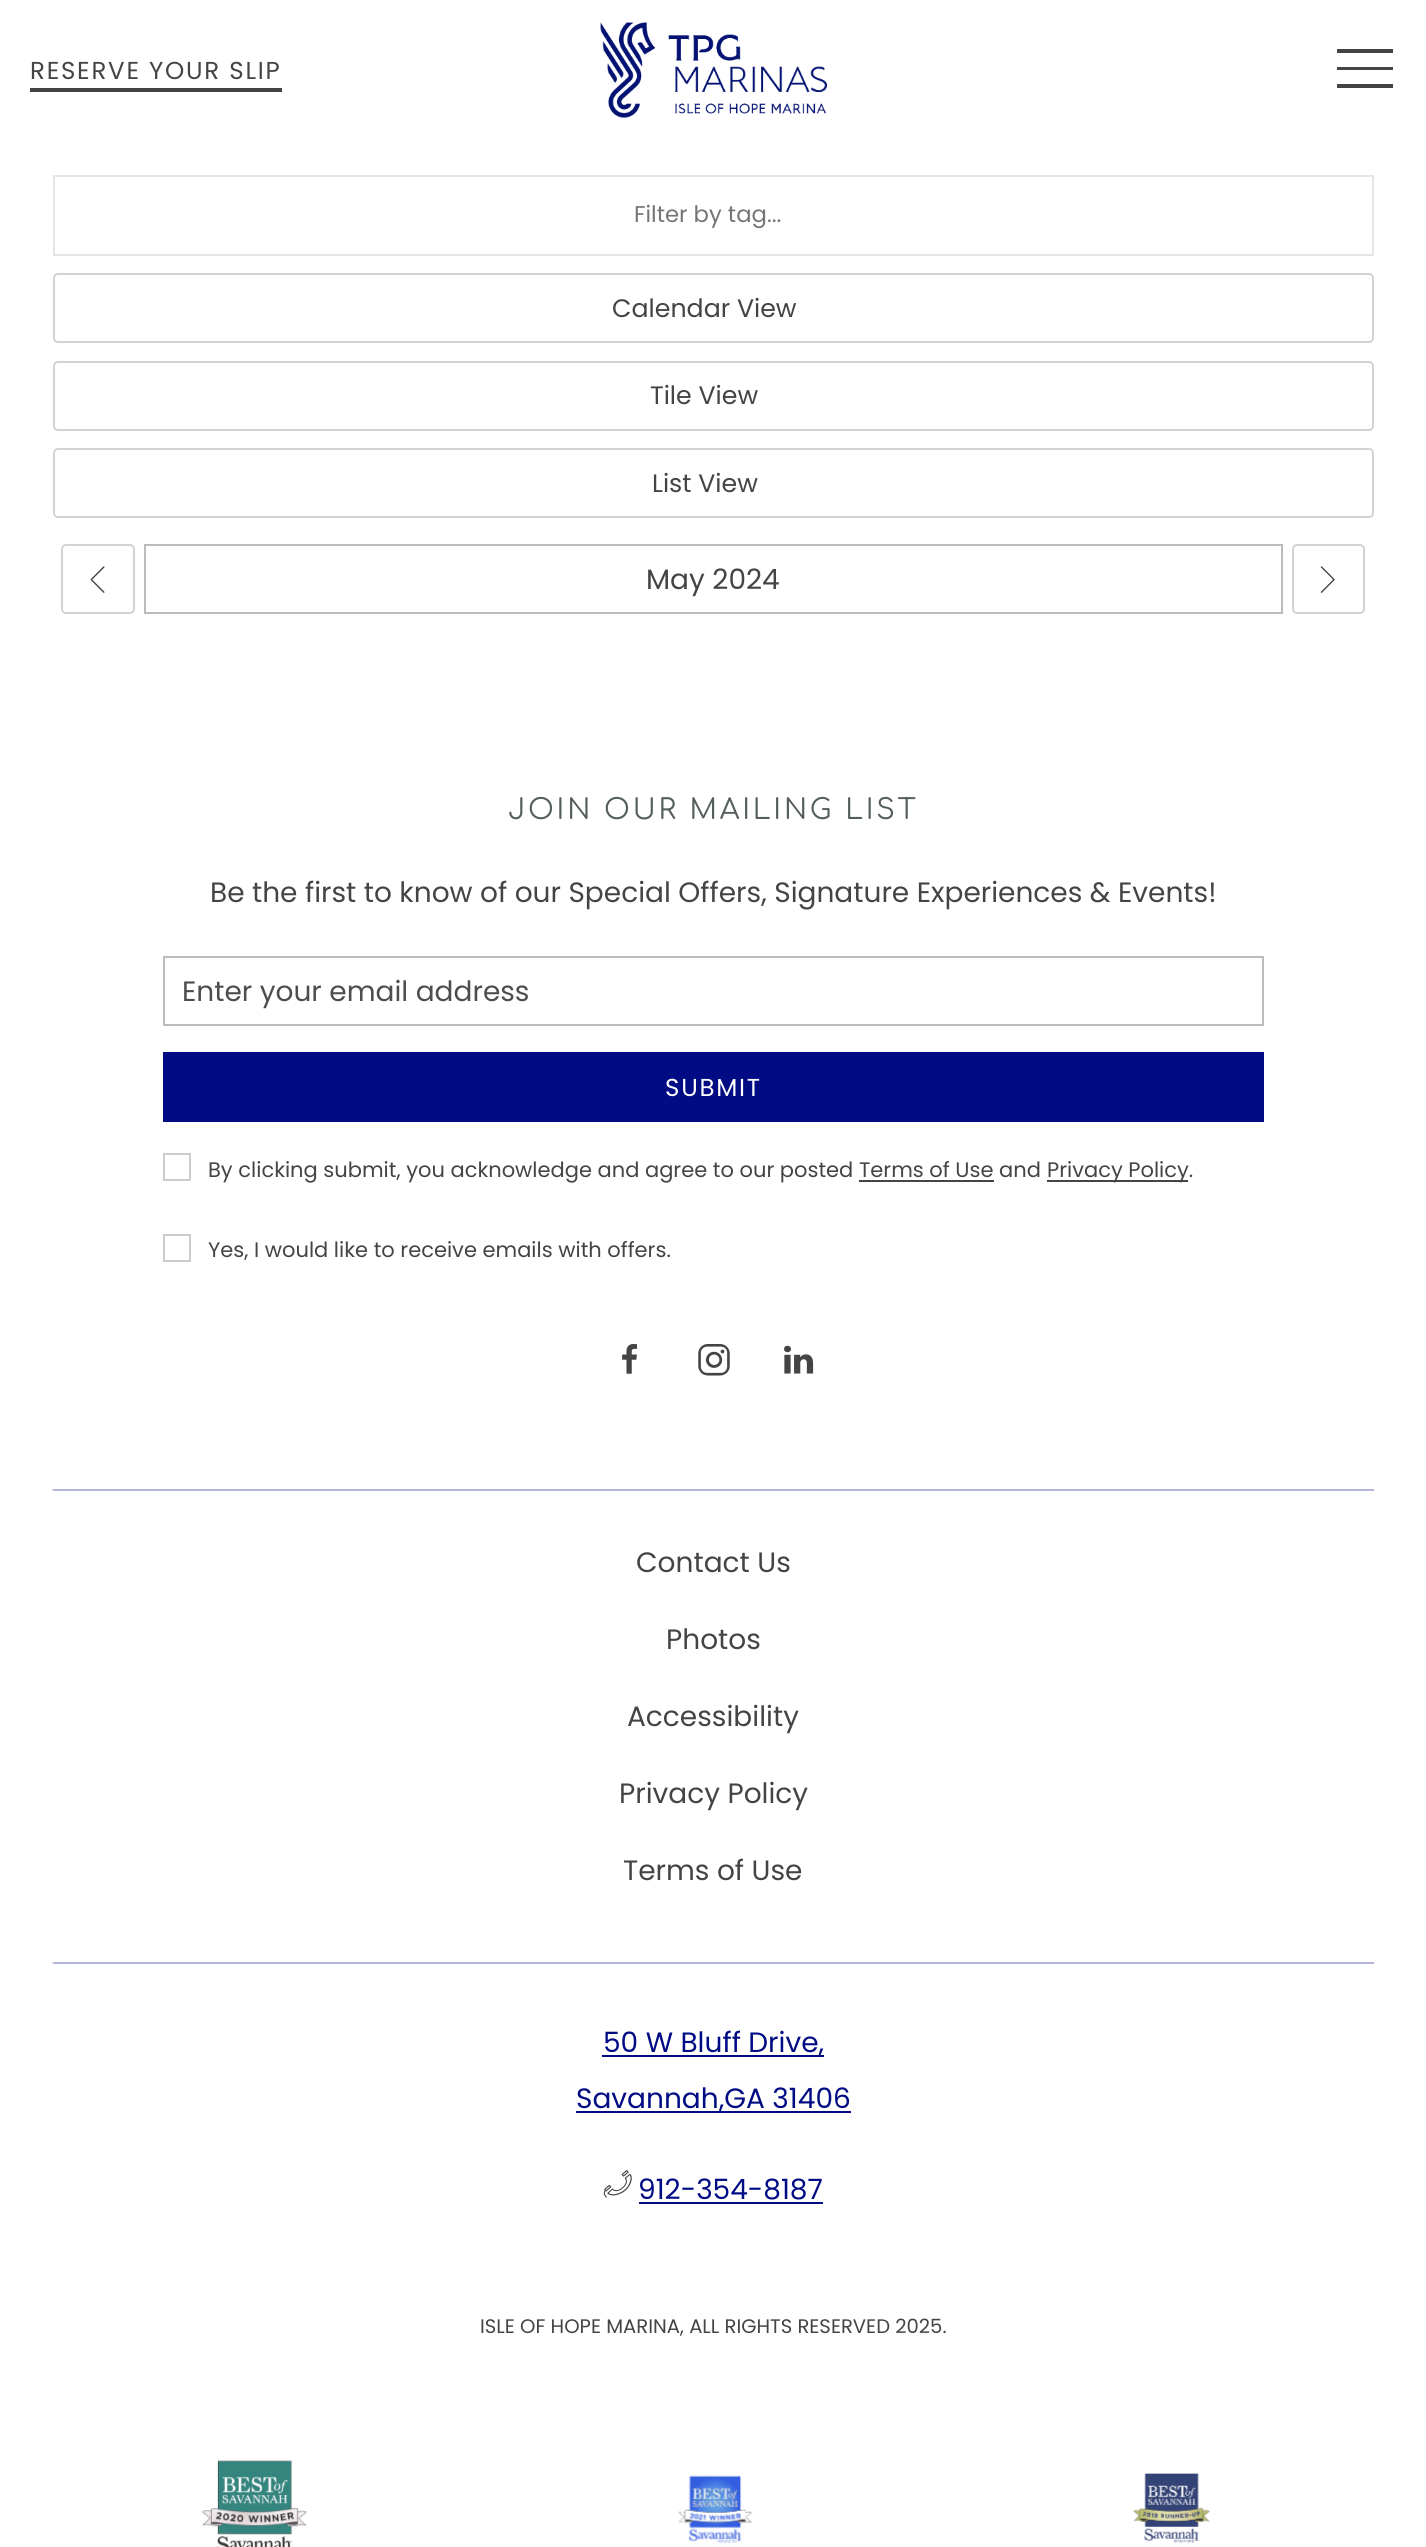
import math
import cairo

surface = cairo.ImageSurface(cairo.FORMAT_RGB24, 1426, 2547)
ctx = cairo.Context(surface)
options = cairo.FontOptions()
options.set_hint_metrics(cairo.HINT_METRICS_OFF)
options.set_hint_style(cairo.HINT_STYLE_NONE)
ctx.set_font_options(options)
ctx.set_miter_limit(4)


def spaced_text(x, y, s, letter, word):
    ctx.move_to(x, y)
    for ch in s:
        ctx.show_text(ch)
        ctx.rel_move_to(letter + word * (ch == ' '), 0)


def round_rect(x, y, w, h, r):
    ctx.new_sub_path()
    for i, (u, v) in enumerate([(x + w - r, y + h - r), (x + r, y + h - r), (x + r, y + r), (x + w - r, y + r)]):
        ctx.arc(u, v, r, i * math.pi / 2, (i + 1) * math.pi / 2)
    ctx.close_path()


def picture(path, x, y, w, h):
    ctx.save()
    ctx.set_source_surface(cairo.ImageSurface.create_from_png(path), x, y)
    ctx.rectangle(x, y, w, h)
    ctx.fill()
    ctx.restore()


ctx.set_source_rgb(1, 1, 1)
ctx.paint()
ctx.select_font_face("Poppins")
ctx.set_font_size(24.5)
ctx.set_source_rgb(0.267, 0.267, 0.267)
spaced_text(30, 79, "RESERVE YOUR SLIP", 1.75, 0)
ctx.rectangle(30, 88, 252, 4)
ctx.fill()
picture("img1.png", 600, 22, 228, 96)
ctx.rectangle(1337, 49, 56, 4)
ctx.fill()
ctx.rectangle(1337, 67, 56, 3)
ctx.fill()
ctx.rectangle(1337, 84, 56, 4)
ctx.fill()
ctx.rectangle(54, 176, 1319, 79)
ctx.set_source_rgb(0.898, 0.898, 0.898)
ctx.stroke()
ctx.set_font_size(22.75)
ctx.set_source_rgb(0.459, 0.459, 0.459)
ctx.move_to(634, 222)
ctx.show_text("Filter by tag...")
round_rect(54, 274, 1319, 68, 4)
ctx.set_source_rgb(0.827, 0.827, 0.827)
ctx.stroke()
ctx.set_font_size(25.25)
ctx.set_source_rgb(0.267, 0.267, 0.267)
ctx.move_to(612, 317)
ctx.show_text("Calendar View")
round_rect(54, 362, 1319, 68, 4)
ctx.set_source_rgb(0.827, 0.827, 0.827)
ctx.stroke()
ctx.set_source_rgb(0.267, 0.267, 0.267)
ctx.move_to(650, 404)
ctx.show_text("Tile View")
round_rect(54, 449, 1319, 68, 4)
ctx.set_source_rgb(0.827, 0.827, 0.827)
ctx.stroke()
ctx.set_source_rgb(0.267, 0.267, 0.267)
ctx.move_to(652, 492)
ctx.show_text("List View")
round_rect(62, 545, 72, 68, 4)
ctx.set_source_rgb(0.827, 0.827, 0.827)
ctx.stroke()
picture("img2.png", 90, 566, 15, 27)
ctx.rectangle(145, 545, 1137, 68)
ctx.set_source_rgb(0.733, 0.733, 0.733)
ctx.stroke()
ctx.set_font_size(28)
ctx.set_source_rgb(0.267, 0.267, 0.267)
ctx.move_to(646, 589)
ctx.show_text("May 2024")
round_rect(1293, 545, 71, 68, 4)
ctx.set_source_rgb(0.827, 0.827, 0.827)
ctx.stroke()
picture("img3.png", 1320, 566, 15, 27)
ctx.select_font_face("Comfortaa")
ctx.set_source_rgb(0.333, 0.369, 0.373)
spaced_text(508, 819, "JOIN OUR MAILING LIST", 2.8, 0)
ctx.select_font_face("Poppins")
ctx.set_source_rgb(0.267, 0.267, 0.267)
ctx.move_to(210, 902)
ctx.show_text("Be the first to know of our Special Offers, Signature Experiences & Events!")
ctx.rectangle(164, 957, 1099, 68)
ctx.set_source_rgb(0.733, 0.733, 0.733)
ctx.stroke()
ctx.set_source_rgb(0.302, 0.302, 0.302)
ctx.move_to(182, 1001)
ctx.show_text("Enter your email address")
ctx.set_source_rgb(0, 0.043, 0.518)
ctx.rectangle(163, 1052, 1101, 70)
ctx.fill()
ctx.set_font_size(24.5)
ctx.set_source_rgb(1, 1, 1)
spaced_text(665, 1096, "SUBMIT", 1.75, 0)
ctx.rectangle(164, 1154, 26, 26)
ctx.set_source_rgb(0.8, 0.8, 0.8)
ctx.stroke()
ctx.set_font_size(21)
ctx.set_source_rgb(0.267, 0.267, 0.267)
ctx.move_to(208, 1177)
ctx.show_text("By clicking submit, you acknowledge and agree to our posted Terms of Use and")
ctx.rectangle(1047, 1180, 141, 2)
ctx.fill()
ctx.move_to(1047, 1177)
ctx.show_text("Privacy Policy.")
ctx.rectangle(859, 1180, 135, 2)
ctx.fill()
ctx.rectangle(164, 1235, 26, 26)
ctx.set_source_rgb(0.8, 0.8, 0.8)
ctx.stroke()
ctx.set_source_rgb(0.267, 0.267, 0.267)
ctx.move_to(208, 1257)
ctx.show_text("Yes, I would like to receive emails with offers.")
picture("img4.png", 622, 1344, 15, 30)
picture("img5.png", 698, 1344, 32, 32)
picture("img6.png", 784, 1345, 30, 29)
ctx.set_source_rgb(0.702, 0.714, 0.855)
ctx.new_path()
ctx.move_to(52, 1489)
ctx.line_to(1374, 1489)
ctx.line_to(1374, 1491)
ctx.line_to(54, 1491)
ctx.close_path()
ctx.fill()
ctx.set_source_rgba(0.714, 0.714, 0.714, 0.53)
ctx.new_path()
ctx.move_to(52.5, 1491)
ctx.line_to(52.5, 1489)
ctx.line_to(54, 1491)
ctx.close_path()
ctx.fill()
ctx.set_font_size(28)
ctx.set_source_rgb(0.267, 0.267, 0.267)
ctx.move_to(636, 1572)
ctx.show_text("Contact Us")
ctx.move_to(666, 1649)
ctx.show_text("Photos")
ctx.move_to(627, 1726)
ctx.show_text("Accessibility")
ctx.move_to(619, 1803)
ctx.show_text("Privacy Policy")
ctx.move_to(623, 1880)
ctx.show_text("Terms of Use")
ctx.set_source_rgb(0.702, 0.714, 0.855)
ctx.new_path()
ctx.move_to(52, 1962)
ctx.line_to(1374, 1962)
ctx.line_to(1374, 1964)
ctx.line_to(54, 1964)
ctx.close_path()
ctx.fill()
ctx.set_source_rgba(0.714, 0.714, 0.714, 0.53)
ctx.new_path()
ctx.move_to(52.5, 1963.5)
ctx.line_to(52.5, 1962)
ctx.line_to(54, 1963.5)
ctx.close_path()
ctx.fill()
ctx.set_source_rgb(0, 0.043, 0.518)
ctx.rectangle(602, 2055, 222, 2)
ctx.fill()
ctx.move_to(603, 2052)
ctx.show_text("50 W Bluff Drive,")
ctx.rectangle(576, 2111, 275, 2)
ctx.fill()
ctx.move_to(576, 2108)
ctx.show_text("Savannah,GA 31406")
picture("img7.png", 603, 2170, 29, 28)
ctx.move_to(638, 2199)
ctx.show_text("912-354-8187")
ctx.rectangle(639, 2202, 184, 2)
ctx.fill()
ctx.set_font_size(19.6)
ctx.set_source_rgb(0.267, 0.267, 0.267)
ctx.move_to(480, 2333)
ctx.show_text("ISLE OF HOPE MARINA, ALL RIGHTS RESERVED 2025.")
picture("img8.png", 202, 2460, 105, 87)
picture("img9.png", 678, 2475, 74, 68)
picture("img10.png", 1133, 2473, 77, 70)
surface.write_to_png("page.png")
